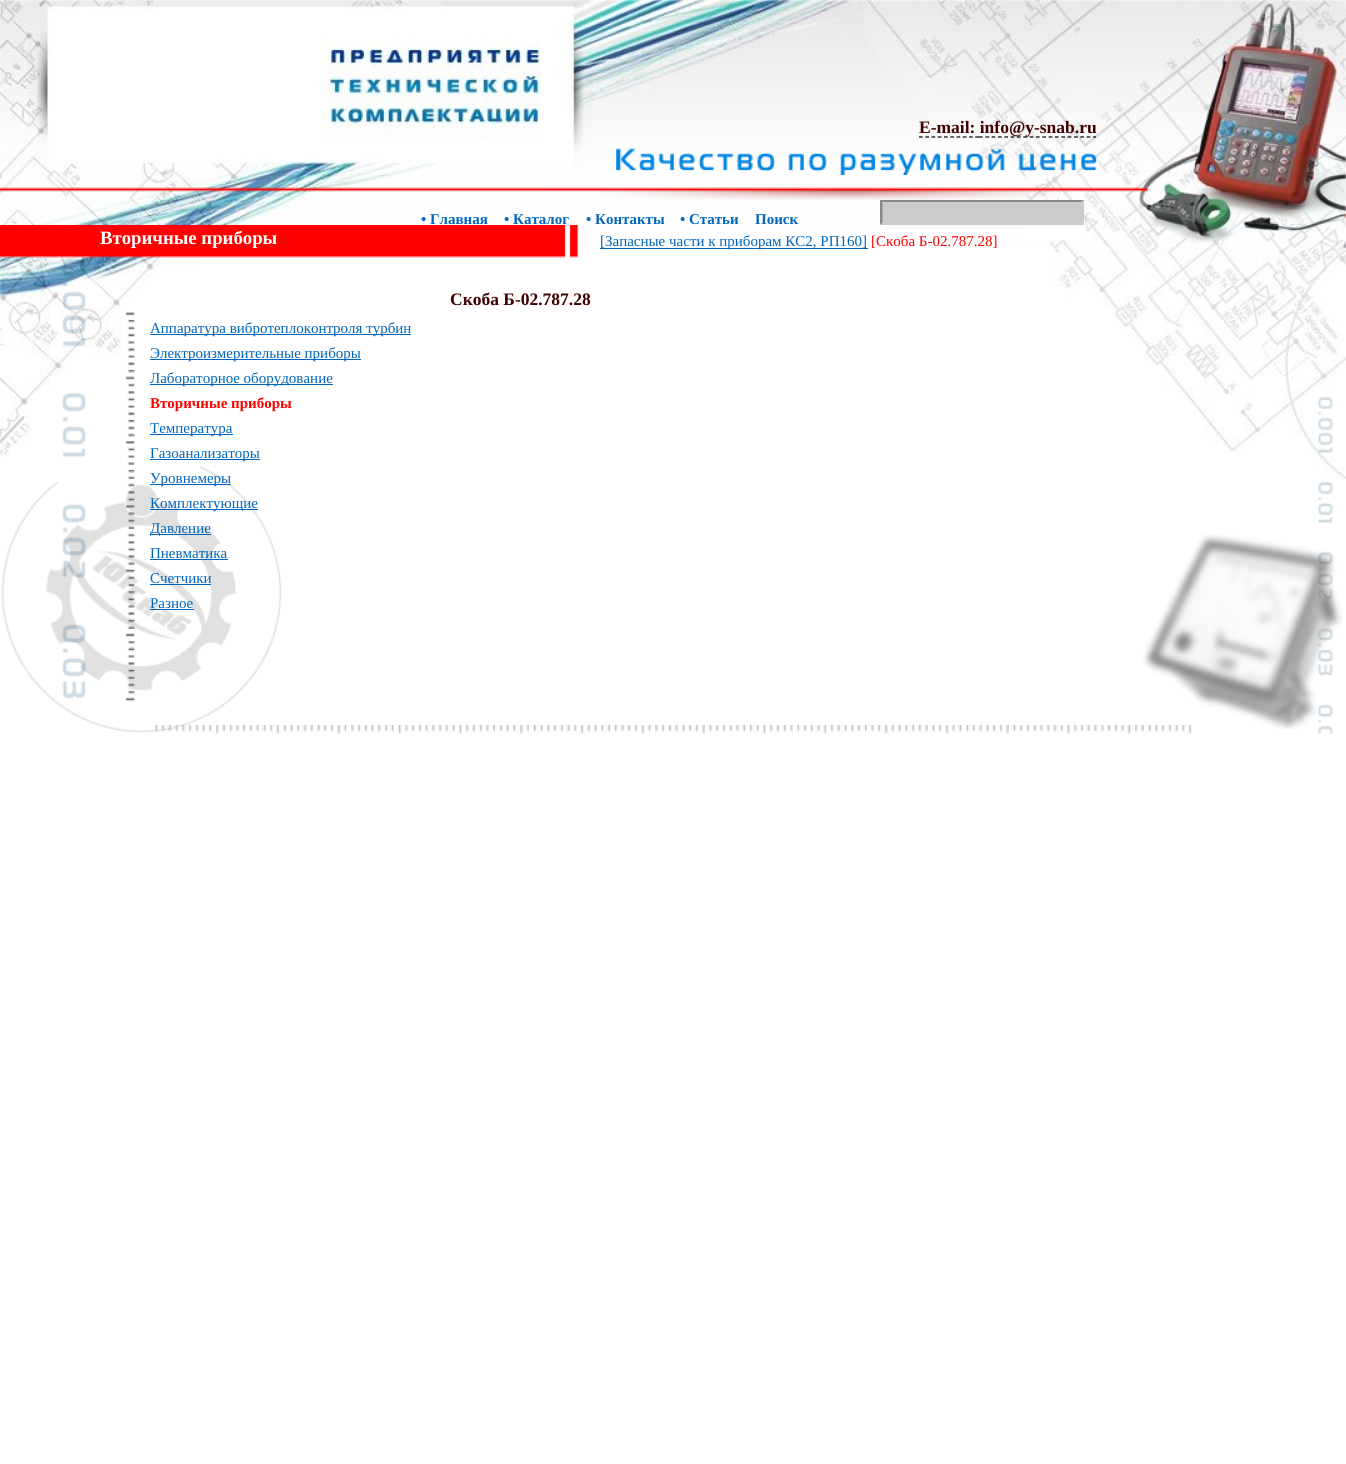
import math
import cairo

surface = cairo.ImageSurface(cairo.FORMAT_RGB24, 1346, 1464)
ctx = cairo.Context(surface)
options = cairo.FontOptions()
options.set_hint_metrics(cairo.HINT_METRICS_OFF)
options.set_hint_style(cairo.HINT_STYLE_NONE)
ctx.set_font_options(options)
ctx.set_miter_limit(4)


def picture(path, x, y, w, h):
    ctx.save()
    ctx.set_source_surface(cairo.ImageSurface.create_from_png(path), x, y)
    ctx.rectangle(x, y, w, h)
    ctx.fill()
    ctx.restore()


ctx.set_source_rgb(1, 1, 1)
ctx.paint()
picture("img1.png", 0, 0, 870, 247)
picture("img8.png", 1053, 246, 293, 233)
picture("img2.png", 863, 0, 483, 247)
ctx.new_path()
ctx.move_to(919, 137)
ctx.line_to(979, 137)
ctx.set_source_rgb(0, 0, 0)
ctx.set_line_width(1.2)
ctx.set_dash([3.75, 2.5])
ctx.stroke()
ctx.new_path()
ctx.move_to(979, 137)
ctx.line_to(1096, 137)
ctx.set_dash([3.75, 2.58])
ctx.stroke()
ctx.select_font_face("Liberation Serif", cairo.FONT_SLANT_NORMAL, cairo.FONT_WEIGHT_BOLD)
ctx.set_font_size(17.5)
ctx.set_source_rgb(0.255, 0.004, 0.004)
ctx.move_to(919, 133)
ctx.show_text("E-mail: info@y-snab.ru")
picture("img3.png", 616, 148, 481, 27)
picture("img4.png", 0, 187, 1149, 13)
ctx.set_source_rgb(1, 1, 1)
ctx.rectangle(1023, 200, 61, 40)
ctx.fill()
ctx.set_font_size(15)
ctx.set_source_rgb(0, 0.396, 0.741)
ctx.move_to(421, 224)
ctx.show_text("• Главная")
ctx.move_to(504, 224)
ctx.show_text("• Каталог")
ctx.move_to(586, 224)
ctx.show_text("• Контакты")
ctx.move_to(680, 224)
ctx.show_text("• Статьи")
ctx.move_to(755, 224)
ctx.show_text("Поиск")
ctx.set_source_rgb(0.8, 0.8, 0.8)
ctx.rectangle(880, 200, 204, 25)
ctx.fill()
ctx.set_source_rgb(0.533, 0.533, 0.533)
ctx.new_path()
ctx.move_to(880, 200)
ctx.line_to(1084, 200)
ctx.line_to(1081, 202)
ctx.line_to(882, 202)
ctx.close_path()
ctx.fill()
ctx.set_source_rgb(0.8, 0.8, 0.8)
ctx.new_path()
ctx.move_to(1084, 200)
ctx.line_to(1084, 225)
ctx.line_to(1081, 222.5)
ctx.line_to(1081, 202.5)
ctx.close_path()
ctx.fill()
ctx.set_source_rgb(0.533, 0.533, 0.533)
ctx.new_path()
ctx.move_to(880, 225)
ctx.line_to(880, 200)
ctx.line_to(882.5, 202.5)
ctx.line_to(882.5, 222.5)
ctx.close_path()
ctx.fill()
picture("img6.png", 1, 465, 281, 268)
picture("img7.png", 0, 256, 200, 227)
picture("img5.png", 0, 225, 579, 33)
ctx.set_font_size(18.75)
ctx.set_source_rgb(1, 1, 1)
ctx.move_to(100, 244)
ctx.show_text("Вторичные приборы")
ctx.set_source_rgb(0, 0.396, 0.741)
ctx.rectangle(600, 248, 268, 1)
ctx.fill()
ctx.select_font_face("Liberation Serif")
ctx.set_font_size(15)
ctx.move_to(600, 246)
ctx.show_text("[Запасные части к приборам КС2, РП160]")
ctx.set_source_rgb(1, 0, 0)
ctx.move_to(871, 246)
ctx.show_text("[Скоба Б-02.787.28]")
picture("img9.png", 62, 258, 24, 441)
picture("img10.png", 1317, 396, 16, 338)
picture("img11.png", 1143, 534, 200, 196)
ctx.select_font_face("Liberation Serif", cairo.FONT_SLANT_NORMAL, cairo.FONT_WEIGHT_BOLD)
ctx.set_font_size(17.5)
ctx.set_source_rgb(0.255, 0.004, 0.004)
ctx.move_to(450, 305)
ctx.show_text("Скоба Б-02.787.28")
picture("img12.png", 155, 725, 1037, 9)
picture("img13.png", 125, 312, 10, 390)
ctx.set_source_rgb(0, 0.396, 0.741)
ctx.rectangle(150, 334, 261, 1)
ctx.fill()
ctx.select_font_face("Liberation Serif")
ctx.set_font_size(15)
ctx.move_to(150, 333)
ctx.show_text("Аппаратура вибротеплоконтроля турбин")
ctx.rectangle(150, 359, 211, 1)
ctx.fill()
ctx.move_to(150, 358)
ctx.show_text("Электроизмерительные приборы")
ctx.rectangle(150, 384, 183, 1)
ctx.fill()
ctx.move_to(150, 383)
ctx.show_text("Лабораторное оборудование")
ctx.select_font_face("Liberation Serif", cairo.FONT_SLANT_NORMAL, cairo.FONT_WEIGHT_BOLD)
ctx.set_source_rgb(1, 0, 0)
ctx.move_to(150, 408)
ctx.show_text("Вторичные приборы")
ctx.set_source_rgb(0, 0.396, 0.741)
ctx.rectangle(150, 434, 83, 1)
ctx.fill()
ctx.select_font_face("Liberation Serif")
ctx.move_to(150, 433)
ctx.show_text("Температура")
ctx.rectangle(150, 459, 110, 1)
ctx.fill()
ctx.move_to(150, 458)
ctx.show_text("Газоанализаторы")
ctx.rectangle(150, 484, 81, 1)
ctx.fill()
ctx.move_to(150, 483)
ctx.show_text("Уровнемеры")
ctx.rectangle(150, 509, 108, 1)
ctx.fill()
ctx.move_to(150, 508)
ctx.show_text("Комплектующие")
ctx.rectangle(150, 534, 61, 1)
ctx.fill()
ctx.move_to(150, 533)
ctx.show_text("Давление")
ctx.move_to(150, 558)
ctx.show_text("Пневматика")
ctx.rectangle(150, 559, 78, 1)
ctx.fill()
ctx.move_to(150, 583)
ctx.show_text("Счетчики")
ctx.rectangle(150, 584, 61, 1)
ctx.fill()
ctx.move_to(150, 608)
ctx.show_text("Разное")
ctx.rectangle(150, 609, 44, 1)
ctx.fill()
surface.write_to_png("page.png")
